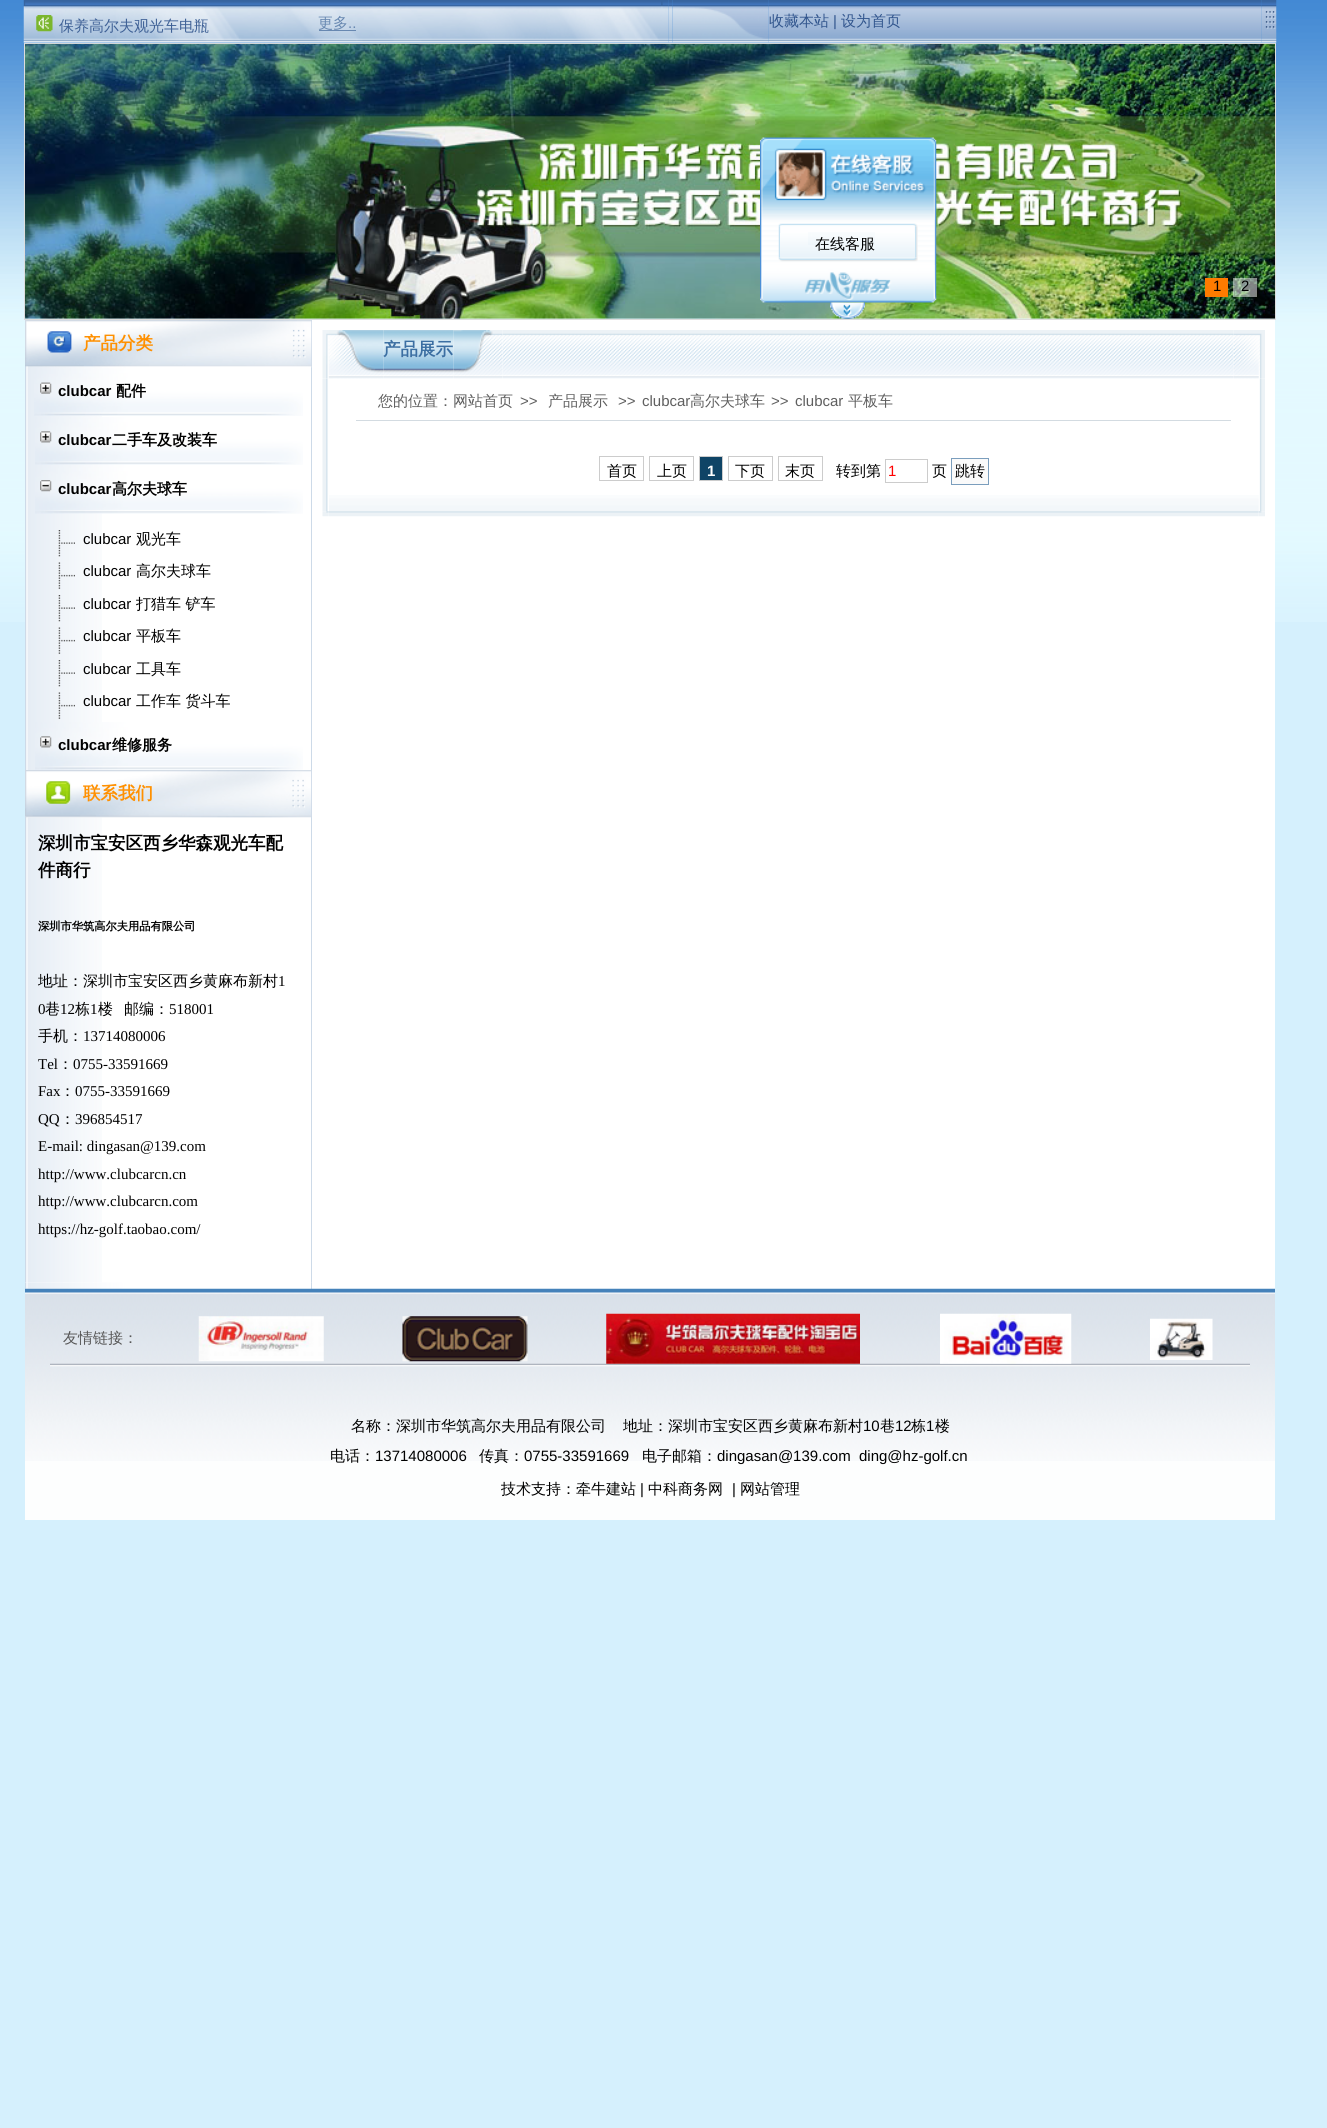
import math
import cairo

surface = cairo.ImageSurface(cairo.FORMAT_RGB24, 1327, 2128)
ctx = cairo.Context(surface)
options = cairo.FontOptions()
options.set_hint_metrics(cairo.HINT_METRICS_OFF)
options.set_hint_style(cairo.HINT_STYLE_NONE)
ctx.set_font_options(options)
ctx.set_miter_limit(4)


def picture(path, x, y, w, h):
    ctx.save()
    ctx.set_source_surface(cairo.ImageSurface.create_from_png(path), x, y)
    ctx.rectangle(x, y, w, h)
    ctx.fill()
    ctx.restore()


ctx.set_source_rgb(0.835, 0.941, 0.992)
ctx.paint()
picture("img1.png", 0, 0, 1327, 622)
picture("img2.png", 23, 0, 646, 43)
picture("img3.png", 36, 15, 17, 17)
ctx.select_font_face("WenQuanYi Zen Hei Medium")
ctx.set_font_size(15)
ctx.set_source_rgb(0.247, 0.38, 0.588)
ctx.move_to(59, 31)
ctx.show_text("保养高尔夫观光车电瓶")
ctx.set_source_rgb(0.408, 0.533, 0.694)
ctx.move_to(318, 28)
ctx.show_text("更多")
ctx.select_font_face("Liberation Sans")
ctx.move_to(348, 28)
ctx.show_text("..")
ctx.rectangle(319, 30, 37, 1)
ctx.fill()
picture("img4.png", 668, 0, 5, 43)
picture("img5.png", 672, 0, 97, 43)
picture("img6.png", 768, 0, 494, 43)
ctx.select_font_face("WenQuanYi Zen Hei Medium")
ctx.set_source_rgb(0.192, 0.333, 0.553)
ctx.move_to(769, 26)
ctx.show_text("收藏本站")
ctx.select_font_face("Liberation Sans")
ctx.move_to(833, 26)
ctx.show_text("|")
ctx.select_font_face("WenQuanYi Zen Hei Medium")
ctx.move_to(841, 26)
ctx.show_text("设为首页")
picture("img7.png", 1261, 0, 16, 43)
ctx.rectangle(24.5, 43.5, 1251, 276)
ctx.set_source_rgb(0.867, 0.867, 0.867)
ctx.set_line_width(1)
ctx.stroke()
picture("img8.png", 25, 43, 1250, 276)
ctx.set_source_rgb(1, 0.482, 0)
ctx.rectangle(1205, 278, 23, 19)
ctx.fill()
ctx.select_font_face("Liberation Sans")
ctx.set_source_rgb(0, 0, 0)
ctx.move_to(1213, 291)
ctx.show_text("1")
ctx.set_source_rgba(1, 1, 1, 0.5)
ctx.rectangle(1233, 278, 24, 19)
ctx.fill()
ctx.set_source_rgb(0, 0, 0)
ctx.move_to(1241, 291)
ctx.show_text("2")
ctx.set_source_rgb(1, 1, 1)
ctx.rectangle(25, 320, 1250, 969)
ctx.fill()
picture("img9.png", 25, 367, 77, 916)
ctx.set_source_rgb(0.804, 0.855, 0.91)
ctx.rectangle(311, 320, 1, 963)
ctx.fill()
picture("img10.png", 25, 320, 287, 48)
ctx.select_font_face("WenQuanYi Zen Hei", cairo.FONT_SLANT_NORMAL, cairo.FONT_WEIGHT_BOLD)
ctx.set_font_size(17.5)
ctx.set_source_rgb(1, 0.565, 0)
ctx.move_to(83, 349)
ctx.show_text("产品分类")
picture("img12.png", 34, 368, 269, 48)
picture("img11.png", 40, 382, 12, 12)
ctx.select_font_face("Liberation Sans", cairo.FONT_SLANT_NORMAL, cairo.FONT_WEIGHT_BOLD)
ctx.set_font_size(15)
ctx.set_source_rgb(0, 0, 0)
ctx.move_to(58, 396)
ctx.show_text("clubcar")
ctx.select_font_face("WenQuanYi Zen Hei", cairo.FONT_SLANT_NORMAL, cairo.FONT_WEIGHT_BOLD)
ctx.move_to(116, 396)
ctx.show_text("配件")
picture("img14.png", 35, 417, 268, 48)
picture("img13.png", 40, 431, 12, 12)
ctx.select_font_face("Liberation Sans", cairo.FONT_SLANT_NORMAL, cairo.FONT_WEIGHT_BOLD)
ctx.move_to(58, 445)
ctx.show_text("clubcar")
ctx.select_font_face("WenQuanYi Zen Hei", cairo.FONT_SLANT_NORMAL, cairo.FONT_WEIGHT_BOLD)
ctx.move_to(112, 445)
ctx.show_text("二手车及改装车")
picture("img16.png", 35, 465, 268, 49)
picture("img15.png", 40, 480, 12, 12)
ctx.select_font_face("Liberation Sans", cairo.FONT_SLANT_NORMAL, cairo.FONT_WEIGHT_BOLD)
ctx.move_to(58, 494)
ctx.show_text("clubcar")
ctx.select_font_face("WenQuanYi Zen Hei", cairo.FONT_SLANT_NORMAL, cairo.FONT_WEIGHT_BOLD)
ctx.move_to(112, 494)
ctx.show_text("高尔夫球车")
picture("img17.png", 58, 530, 17, 27)
ctx.select_font_face("Liberation Sans")
ctx.move_to(83, 544)
ctx.show_text("clubcar")
ctx.select_font_face("WenQuanYi Zen Hei Medium")
ctx.move_to(136, 544)
ctx.show_text("观光车")
picture("img18.png", 58, 562, 17, 27)
ctx.select_font_face("Liberation Sans")
ctx.move_to(83, 576)
ctx.show_text("clubcar")
ctx.select_font_face("WenQuanYi Zen Hei Medium")
ctx.move_to(136, 576)
ctx.show_text("高尔夫球车")
picture("img17.png", 58, 595, 17, 27)
ctx.select_font_face("Liberation Sans")
ctx.move_to(83, 609)
ctx.show_text("clubcar")
ctx.select_font_face("WenQuanYi Zen Hei Medium")
ctx.move_to(136, 609)
ctx.show_text("打猎车 铲车")
picture("img18.png", 58, 627, 17, 27)
ctx.select_font_face("Liberation Sans")
ctx.move_to(83, 641)
ctx.show_text("clubcar")
ctx.select_font_face("WenQuanYi Zen Hei Medium")
ctx.move_to(136, 641)
ctx.show_text("平板车")
picture("img17.png", 58, 660, 17, 27)
ctx.select_font_face("Liberation Sans")
ctx.move_to(83, 674)
ctx.show_text("clubcar")
ctx.select_font_face("WenQuanYi Zen Hei Medium")
ctx.move_to(136, 674)
ctx.show_text("工具车")
picture("img18.png", 58, 692, 17, 27)
ctx.select_font_face("Liberation Sans")
ctx.move_to(83, 706)
ctx.show_text("clubcar")
ctx.select_font_face("WenQuanYi Zen Hei Medium")
ctx.move_to(136, 706)
ctx.show_text("工作车 货斗车")
picture("img14.png", 35, 722, 268, 48)
picture("img13.png", 40, 736, 12, 12)
ctx.select_font_face("Liberation Sans", cairo.FONT_SLANT_NORMAL, cairo.FONT_WEIGHT_BOLD)
ctx.move_to(58, 750)
ctx.show_text("clubcar")
ctx.select_font_face("WenQuanYi Zen Hei", cairo.FONT_SLANT_NORMAL, cairo.FONT_WEIGHT_BOLD)
ctx.move_to(112, 750)
ctx.show_text("维修服务")
picture("img19.png", 25, 770, 287, 48)
ctx.set_font_size(17.5)
ctx.set_source_rgb(1, 0.565, 0)
ctx.move_to(83, 799)
ctx.show_text("联系我们")
ctx.set_source_rgb(0, 0, 0)
ctx.move_to(38, 849)
ctx.show_text("深圳市宝安区西乡华森观光车配")
ctx.move_to(38, 876)
ctx.show_text("件商行")
ctx.set_font_size(11.25)
ctx.move_to(38, 930)
ctx.show_text("深圳市华筑高尔夫用品有限公司")
ctx.select_font_face("WenQuanYi Zen Hei Medium")
ctx.set_font_size(15)
ctx.move_to(38, 986)
ctx.show_text("地址：深圳市宝安区西乡黄麻布新村")
ctx.select_font_face("Liberation Serif")
ctx.move_to(278, 986)
ctx.show_text("1")
ctx.move_to(38, 1014)
ctx.show_text("0")
ctx.select_font_face("WenQuanYi Zen Hei Medium")
ctx.move_to(45, 1014)
ctx.show_text("巷")
ctx.select_font_face("Liberation Serif")
ctx.move_to(60, 1014)
ctx.show_text("12")
ctx.select_font_face("WenQuanYi Zen Hei Medium")
ctx.move_to(75, 1014)
ctx.show_text("栋")
ctx.select_font_face("Liberation Serif")
ctx.move_to(90, 1014)
ctx.show_text("1")
ctx.select_font_face("WenQuanYi Zen Hei Medium")
ctx.move_to(98, 1014)
ctx.show_text("楼")
ctx.move_to(124, 1014)
ctx.show_text("邮编：")
ctx.select_font_face("Liberation Serif")
ctx.move_to(169, 1014)
ctx.show_text("518001")
ctx.select_font_face("WenQuanYi Zen Hei Medium")
ctx.move_to(38, 1041)
ctx.show_text("手机：")
ctx.select_font_face("Liberation Serif")
ctx.move_to(83, 1041)
ctx.show_text("13714080006")
ctx.move_to(38, 1069)
ctx.show_text("Tel")
ctx.select_font_face("WenQuanYi Zen Hei Medium")
ctx.move_to(58, 1069)
ctx.show_text("：")
ctx.select_font_face("Liberation Serif")
ctx.move_to(73, 1069)
ctx.show_text("0755-33591669")
ctx.move_to(38, 1096)
ctx.show_text("Fax")
ctx.select_font_face("WenQuanYi Zen Hei Medium")
ctx.move_to(60, 1096)
ctx.show_text("：")
ctx.select_font_face("Liberation Serif")
ctx.move_to(75, 1096)
ctx.show_text("0755-33591669")
ctx.move_to(38, 1124)
ctx.show_text("QQ")
ctx.select_font_face("WenQuanYi Zen Hei Medium")
ctx.move_to(60, 1124)
ctx.show_text("：")
ctx.select_font_face("Liberation Serif")
ctx.move_to(75, 1124)
ctx.show_text("396854517")
ctx.move_to(38, 1151)
ctx.show_text("E-mail: dingasan@139.com")
ctx.move_to(38, 1179)
ctx.show_text("http://www.clubcarcn.cn")
ctx.move_to(38, 1206)
ctx.show_text("http://www.clubcarcn.com")
ctx.move_to(38, 1234)
ctx.show_text("https://hz-golf.taobao.com/")
picture("img20.png", 322, 330, 62, 49)
picture("img21.png", 383, 330, 71, 49)
ctx.select_font_face("WenQuanYi Zen Hei", cairo.FONT_SLANT_NORMAL, cairo.FONT_WEIGHT_BOLD)
ctx.set_font_size(17.5)
ctx.set_source_rgb(0.235, 0.435, 0.635)
ctx.move_to(383, 355)
ctx.show_text("产品展示")
picture("img22.png", 453, 330, 50, 49)
picture("img23.png", 502, 330, 732, 49)
picture("img24.png", 1233, 330, 32, 49)
picture("img25.png", 322, 379, 6, 133)
picture("img26.png", 329, 495, 930, 16)
ctx.set_source_rgb(0.827, 0.859, 0.882)
ctx.rectangle(356, 420, 875, 1)
ctx.fill()
ctx.select_font_face("WenQuanYi Zen Hei Medium")
ctx.set_font_size(15)
ctx.set_source_rgb(0.373, 0.373, 0.373)
ctx.move_to(378, 406)
ctx.show_text("您的位置：网站首页")
ctx.select_font_face("Liberation Sans")
ctx.move_to(520, 406)
ctx.show_text(">>")
ctx.select_font_face("WenQuanYi Zen Hei Medium")
ctx.move_to(548, 406)
ctx.show_text("产品展示")
ctx.select_font_face("Liberation Sans")
ctx.move_to(618, 406)
ctx.show_text(">>")
ctx.move_to(642, 406)
ctx.show_text("clubcar")
ctx.select_font_face("WenQuanYi Zen Hei Medium")
ctx.move_to(690, 406)
ctx.show_text("高尔夫球车")
ctx.select_font_face("Liberation Sans")
ctx.move_to(771, 406)
ctx.show_text(">>")
ctx.move_to(795, 406)
ctx.show_text("clubcar")
ctx.select_font_face("WenQuanYi Zen Hei Medium")
ctx.move_to(848, 406)
ctx.show_text("平板车")
ctx.rectangle(599.5, 456.5, 44, 24)
ctx.set_source_rgb(0.8, 0.8, 0.8)
ctx.stroke()
ctx.set_source_rgb(0, 0, 0)
ctx.move_to(607, 476)
ctx.show_text("首页")
ctx.rectangle(649.5, 456.5, 44, 24)
ctx.set_source_rgb(0.8, 0.8, 0.8)
ctx.stroke()
ctx.set_source_rgb(0, 0, 0)
ctx.move_to(657, 476)
ctx.show_text("上页")
ctx.set_source_rgb(0.059, 0.267, 0.4)
ctx.rectangle(699.5, 456.5, 23, 24)
ctx.fill_preserve()
ctx.set_source_rgb(0.8, 0.8, 0.8)
ctx.stroke()
ctx.select_font_face("Liberation Sans", cairo.FONT_SLANT_NORMAL, cairo.FONT_WEIGHT_BOLD)
ctx.set_source_rgb(1, 1, 1)
ctx.move_to(707, 476)
ctx.show_text("1")
ctx.rectangle(728.5, 456.5, 44, 24)
ctx.set_source_rgb(0.8, 0.8, 0.8)
ctx.stroke()
ctx.select_font_face("WenQuanYi Zen Hei Medium")
ctx.set_source_rgb(0, 0, 0)
ctx.move_to(735, 476)
ctx.show_text("下页")
ctx.rectangle(778.5, 456.5, 44, 24)
ctx.set_source_rgb(0.8, 0.8, 0.8)
ctx.stroke()
ctx.set_source_rgb(0, 0, 0)
ctx.move_to(785, 476)
ctx.show_text("末页")
ctx.move_to(836, 476)
ctx.show_text("转到第")
ctx.rectangle(885.5, 459.5, 42, 23)
ctx.set_source_rgb(0.8, 0.8, 0.8)
ctx.stroke()
ctx.select_font_face("Liberation Sans")
ctx.set_source_rgb(1, 0, 0)
ctx.move_to(888, 476)
ctx.show_text("1")
ctx.select_font_face("WenQuanYi Zen Hei Medium")
ctx.set_source_rgb(0, 0, 0)
ctx.move_to(932, 476)
ctx.show_text("页")
ctx.set_source_rgb(0.98, 0.98, 0.98)
ctx.rectangle(951.5, 458.5, 37, 26)
ctx.fill_preserve()
ctx.set_source_rgb(0.482, 0.62, 0.741)
ctx.stroke()
ctx.set_source_rgb(0, 0, 0)
ctx.move_to(955, 476)
ctx.show_text("跳转")
picture("img27.png", 1259, 379, 6, 133)
picture("img28.png", 322, 511, 7, 6)
picture("img29.png", 329, 511, 930, 6)
picture("img30.png", 1259, 511, 6, 6)
picture("img31.png", 25, 1282, 287, 7)
ctx.set_source_rgb(0.804, 0.855, 0.91)
ctx.rectangle(311, 1283, 1, 6)
ctx.fill()
ctx.set_source_rgb(0.992, 0.996, 0.996)
ctx.rectangle(25, 1461, 1250, 59)
ctx.fill()
picture("img32.png", 25, 1288, 1250, 173)
ctx.set_source_rgb(0.341, 0.341, 0.341)
ctx.move_to(63, 1343)
ctx.show_text("友情链接：")
picture("img33.png", 198, 1316, 126, 46)
picture("img34.png", 402, 1316, 126, 46)
picture("img38.png", 50, 1363, 1200, 4)
picture("img35.png", 606, 1313, 254, 51)
picture("img36.png", 940, 1313, 132, 51)
picture("img37.png", 1150, 1318, 63, 42)
ctx.set_source_rgb(0, 0, 0)
ctx.move_to(351, 1431)
ctx.show_text("名称：深圳市华筑高尔夫用品有限公司")
ctx.move_to(623, 1431)
ctx.show_text("地址：深圳市宝安区西乡黄麻布新村")
ctx.select_font_face("Liberation Sans")
ctx.move_to(863, 1431)
ctx.show_text("10")
ctx.select_font_face("WenQuanYi Zen Hei Medium")
ctx.move_to(880, 1431)
ctx.show_text("巷")
ctx.select_font_face("Liberation Sans")
ctx.move_to(895, 1431)
ctx.show_text("12")
ctx.select_font_face("WenQuanYi Zen Hei Medium")
ctx.move_to(911, 1431)
ctx.show_text("栋")
ctx.select_font_face("Liberation Sans")
ctx.move_to(926, 1431)
ctx.show_text("1")
ctx.select_font_face("WenQuanYi Zen Hei Medium")
ctx.move_to(935, 1431)
ctx.show_text("楼")
ctx.move_to(330, 1461)
ctx.show_text("电话：")
ctx.select_font_face("Liberation Sans")
ctx.move_to(375, 1461)
ctx.show_text("13714080006")
ctx.select_font_face("WenQuanYi Zen Hei Medium")
ctx.move_to(479, 1461)
ctx.show_text("传真：")
ctx.select_font_face("Liberation Sans")
ctx.move_to(524, 1461)
ctx.show_text("0755-33591669")
ctx.select_font_face("WenQuanYi Zen Hei Medium")
ctx.move_to(642, 1461)
ctx.show_text("电子邮箱：")
ctx.select_font_face("Liberation Sans")
ctx.move_to(717, 1461)
ctx.show_text("dingasan@139.com  ding@hz-golf.cn")
ctx.select_font_face("WenQuanYi Zen Hei Medium")
ctx.move_to(501, 1494)
ctx.show_text("技术支持：牵牛建站")
ctx.select_font_face("Liberation Sans")
ctx.move_to(640, 1494)
ctx.show_text("|")
ctx.select_font_face("WenQuanYi Zen Hei Medium")
ctx.move_to(648, 1494)
ctx.show_text("中科商务网")
ctx.select_font_face("Liberation Sans")
ctx.move_to(732, 1494)
ctx.show_text("|")
ctx.select_font_face("WenQuanYi Zen Hei Medium")
ctx.move_to(740, 1494)
ctx.show_text("网站管理")
picture("img39.png", 760, 137, 177, 83)
picture("img40.png", 760, 220, 177, 45)
picture("img41.png", 778, 223, 140, 4)
picture("img42.png", 778, 226, 140, 32)
picture("img46.png", 778, 257, 140, 5)
picture("img43.png", 780, 233, 135, 25)
picture("img44.png", 808, 232, 3, 13)
picture("img45.png", 811, 232, 64, 13)
ctx.move_to(815, 249)
ctx.show_text("在线客服")
picture("img47.png", 760, 265, 177, 38)
picture("img48.png", 830, 302, 35, 17)
surface.write_to_png("page.png")
